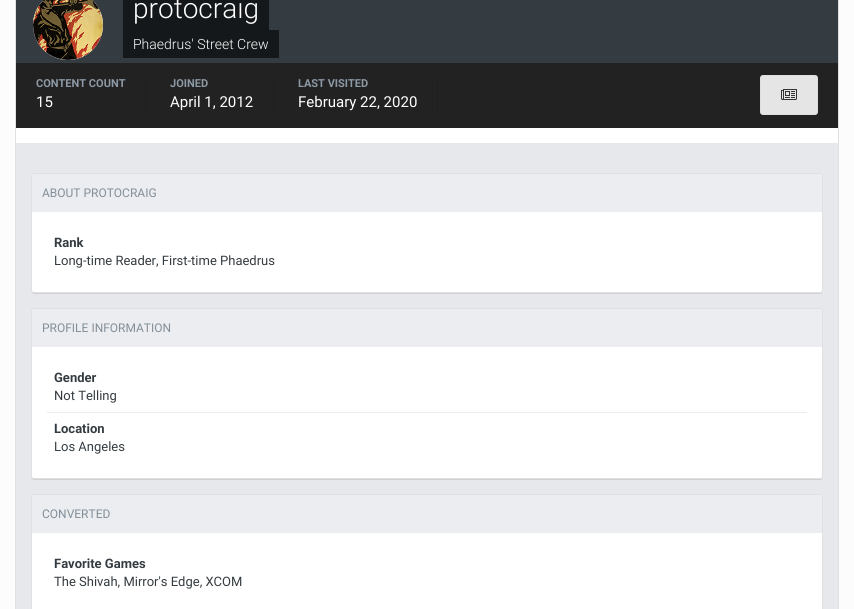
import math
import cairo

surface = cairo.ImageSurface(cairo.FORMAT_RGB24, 854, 609)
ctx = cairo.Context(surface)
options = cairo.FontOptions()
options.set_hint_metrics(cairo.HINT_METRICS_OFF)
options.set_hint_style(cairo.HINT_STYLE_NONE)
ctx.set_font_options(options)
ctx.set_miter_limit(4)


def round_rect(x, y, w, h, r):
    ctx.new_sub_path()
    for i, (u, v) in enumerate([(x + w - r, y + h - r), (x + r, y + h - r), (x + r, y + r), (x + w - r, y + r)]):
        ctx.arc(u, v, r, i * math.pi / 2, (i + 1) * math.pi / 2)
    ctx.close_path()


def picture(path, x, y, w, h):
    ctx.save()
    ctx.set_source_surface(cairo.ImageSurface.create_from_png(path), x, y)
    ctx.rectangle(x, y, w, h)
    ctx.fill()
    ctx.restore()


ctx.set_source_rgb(0.988, 0.988, 0.988)
ctx.paint()
ctx.set_source_rgb(1, 1, 1)
ctx.rectangle(16, 128, 822, 15)
ctx.fill()
ctx.rectangle(15.5, -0.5, 823, 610)
ctx.set_source_rgb(0.878, 0.878, 0.878)
ctx.set_line_width(1)
ctx.stroke()
ctx.set_source_rgb(0.208, 0.235, 0.255)
ctx.rectangle(16, 0, 822, 63)
ctx.fill()
ctx.set_source_rgb(1, 1, 1)
ctx.arc(68, 25, 35, 0, 2 * math.pi)
ctx.fill()
picture("img1.png", 33, 0, 70, 60)
ctx.set_source_rgb(0.082, 0.094, 0.102)
ctx.rectangle(123, 0, 146, 30)
ctx.fill()
ctx.select_font_face("Roboto Light")
ctx.set_font_size(28)
ctx.set_source_rgb(1, 1, 1)
ctx.move_to(133, 18)
ctx.show_text("protocraig")
ctx.set_source_rgb(0.082, 0.094, 0.102)
ctx.rectangle(123, 30, 156, 28)
ctx.fill()
ctx.set_font_size(14)
ctx.set_source_rgb(1, 1, 1)
ctx.move_to(133, 49)
ctx.show_text("Phaedrus' Street Crew")
ctx.set_source_rgb(0.133, 0.133, 0.133)
ctx.rectangle(16, 63, 822, 65)
ctx.fill()
ctx.set_source_rgb(0.122, 0.122, 0.122)
ctx.rectangle(145, 75, 1, 36)
ctx.fill()
ctx.select_font_face("Roboto", cairo.FONT_SLANT_NORMAL, cairo.FONT_WEIGHT_BOLD)
ctx.set_font_size(11)
ctx.set_source_rgb(0.553, 0.604, 0.651)
ctx.move_to(36, 87)
ctx.show_text("CONTENT COUNT")
ctx.select_font_face("Roboto")
ctx.set_font_size(15)
ctx.set_source_rgb(1, 1, 1)
ctx.move_to(36, 107)
ctx.show_text("15")
ctx.set_source_rgb(0.122, 0.122, 0.122)
ctx.rectangle(273, 75, 1, 36)
ctx.fill()
ctx.select_font_face("Roboto", cairo.FONT_SLANT_NORMAL, cairo.FONT_WEIGHT_BOLD)
ctx.set_font_size(11)
ctx.set_source_rgb(0.553, 0.604, 0.651)
ctx.move_to(170, 87)
ctx.show_text("JOINED")
ctx.select_font_face("Roboto")
ctx.set_font_size(15)
ctx.set_source_rgb(1, 1, 1)
ctx.move_to(170, 107)
ctx.show_text("April 1, 2012")
ctx.set_source_rgb(0.122, 0.122, 0.122)
ctx.rectangle(437, 75, 1, 36)
ctx.fill()
ctx.select_font_face("Roboto", cairo.FONT_SLANT_NORMAL, cairo.FONT_WEIGHT_BOLD)
ctx.set_font_size(11)
ctx.set_source_rgb(0.553, 0.604, 0.651)
ctx.move_to(298, 87)
ctx.show_text("LAST VISITED")
ctx.select_font_face("Roboto")
ctx.set_font_size(15)
ctx.set_source_rgb(1, 1, 1)
ctx.move_to(298, 107)
ctx.show_text("February 22, 2020")
ctx.set_source_rgb(0.898, 0.898, 0.898)
round_rect(760, 75, 58, 40, 3)
ctx.fill()
ctx.rectangle(760.5, 75.5, 57, 39)
ctx.set_source_rgba(0, 0, 0, 0.03)
ctx.stroke()
picture("img2.png", 781, 89, 16, 11)
ctx.set_source_rgb(0.902, 0.91, 0.922)
ctx.rectangle(16, 143, 822, 466)
ctx.fill()
ctx.set_source_rgb(0.812, 0.82, 0.831)
ctx.new_path()
ctx.move_to(31, 290)
ctx.curve_to(31, 292, 32, 294, 34, 294)
ctx.line_to(820, 294)
ctx.curve_to(822, 294, 823, 292, 823, 290)
ctx.curve_to(823, 292, 822, 293, 820, 293)
ctx.line_to(34, 293)
ctx.curve_to(32, 293, 31, 292, 31, 290)
ctx.close_path()
ctx.fill()
ctx.set_source_rgb(1, 1, 1)
round_rect(31.5, 173.5, 791, 119, 2.5)
ctx.fill_preserve()
ctx.set_source_rgb(0.878, 0.878, 0.878)
ctx.stroke()
ctx.set_source_rgb(0.922, 0.929, 0.941)
ctx.new_path()
ctx.move_to(34, 174)
ctx.line_to(820, 174)
ctx.curve_to(821, 174, 822, 175, 822, 176)
ctx.line_to(822, 212)
ctx.line_to(32, 212)
ctx.line_to(32, 176)
ctx.curve_to(32, 175, 33, 174, 34, 174)
ctx.close_path()
ctx.fill()
ctx.set_font_size(12)
ctx.set_source_rgb(0.51, 0.557, 0.6)
ctx.move_to(42, 197)
ctx.show_text("ABOUT PROTOCRAIG")
ctx.select_font_face("Roboto", cairo.FONT_SLANT_NORMAL, cairo.FONT_WEIGHT_BOLD)
ctx.set_font_size(13)
ctx.set_source_rgb(0.208, 0.235, 0.255)
ctx.move_to(54, 247)
ctx.show_text("Rank")
ctx.select_font_face("Roboto")
ctx.move_to(54, 265)
ctx.show_text("Long-time Reader, First-time Phaedrus")
ctx.set_source_rgb(0.812, 0.82, 0.831)
ctx.new_path()
ctx.move_to(31, 476)
ctx.curve_to(31, 478, 32, 480, 34, 480)
ctx.line_to(820, 480)
ctx.curve_to(822, 480, 823, 478, 823, 476)
ctx.curve_to(823, 478, 822, 479, 820, 479)
ctx.line_to(34, 479)
ctx.curve_to(32, 479, 31, 478, 31, 476)
ctx.close_path()
ctx.fill()
ctx.set_source_rgb(1, 1, 1)
round_rect(31.5, 308.5, 791, 170, 2.5)
ctx.fill_preserve()
ctx.set_source_rgb(0.878, 0.878, 0.878)
ctx.stroke()
ctx.set_source_rgb(0.922, 0.929, 0.941)
ctx.new_path()
ctx.move_to(34, 309)
ctx.line_to(820, 309)
ctx.curve_to(821, 309, 822, 310, 822, 311)
ctx.line_to(822, 347)
ctx.line_to(32, 347)
ctx.line_to(32, 311)
ctx.curve_to(32, 310, 33, 309, 34, 309)
ctx.close_path()
ctx.fill()
ctx.set_font_size(12)
ctx.set_source_rgb(0.51, 0.557, 0.6)
ctx.move_to(42, 332)
ctx.show_text("PROFILE INFORMATION")
ctx.set_source_rgb(0.922, 0.922, 0.922)
ctx.rectangle(47, 412, 760, 1)
ctx.fill()
ctx.select_font_face("Roboto", cairo.FONT_SLANT_NORMAL, cairo.FONT_WEIGHT_BOLD)
ctx.set_font_size(13)
ctx.set_source_rgb(0.208, 0.235, 0.255)
ctx.move_to(54, 382)
ctx.show_text("Gender")
ctx.select_font_face("Roboto")
ctx.move_to(54, 400)
ctx.show_text("Not Telling")
ctx.select_font_face("Roboto", cairo.FONT_SLANT_NORMAL, cairo.FONT_WEIGHT_BOLD)
ctx.move_to(54, 433)
ctx.show_text("Location")
ctx.select_font_face("Roboto")
ctx.move_to(54, 451)
ctx.show_text("Los Angeles")
ctx.set_source_rgb(1, 1, 1)
round_rect(31.5, 494.5, 791, 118, 2.5)
ctx.fill_preserve()
ctx.set_source_rgb(0.878, 0.878, 0.878)
ctx.stroke()
ctx.set_source_rgb(0.922, 0.929, 0.941)
ctx.new_path()
ctx.move_to(34, 495)
ctx.line_to(820, 495)
ctx.curve_to(821, 495, 822, 496, 822, 497)
ctx.line_to(822, 533)
ctx.line_to(32, 533)
ctx.line_to(32, 497)
ctx.curve_to(32, 496, 33, 495, 34, 495)
ctx.close_path()
ctx.fill()
ctx.set_font_size(12)
ctx.set_source_rgb(0.51, 0.557, 0.6)
ctx.move_to(42, 518)
ctx.show_text("CONVERTED")
ctx.select_font_face("Roboto", cairo.FONT_SLANT_NORMAL, cairo.FONT_WEIGHT_BOLD)
ctx.set_font_size(13)
ctx.set_source_rgb(0.208, 0.235, 0.255)
ctx.move_to(54, 568)
ctx.show_text("Favorite Games")
ctx.select_font_face("Roboto")
ctx.move_to(54, 586)
ctx.show_text("The Shivah, Mirror's Edge, XCOM")
surface.write_to_png("page.png")
